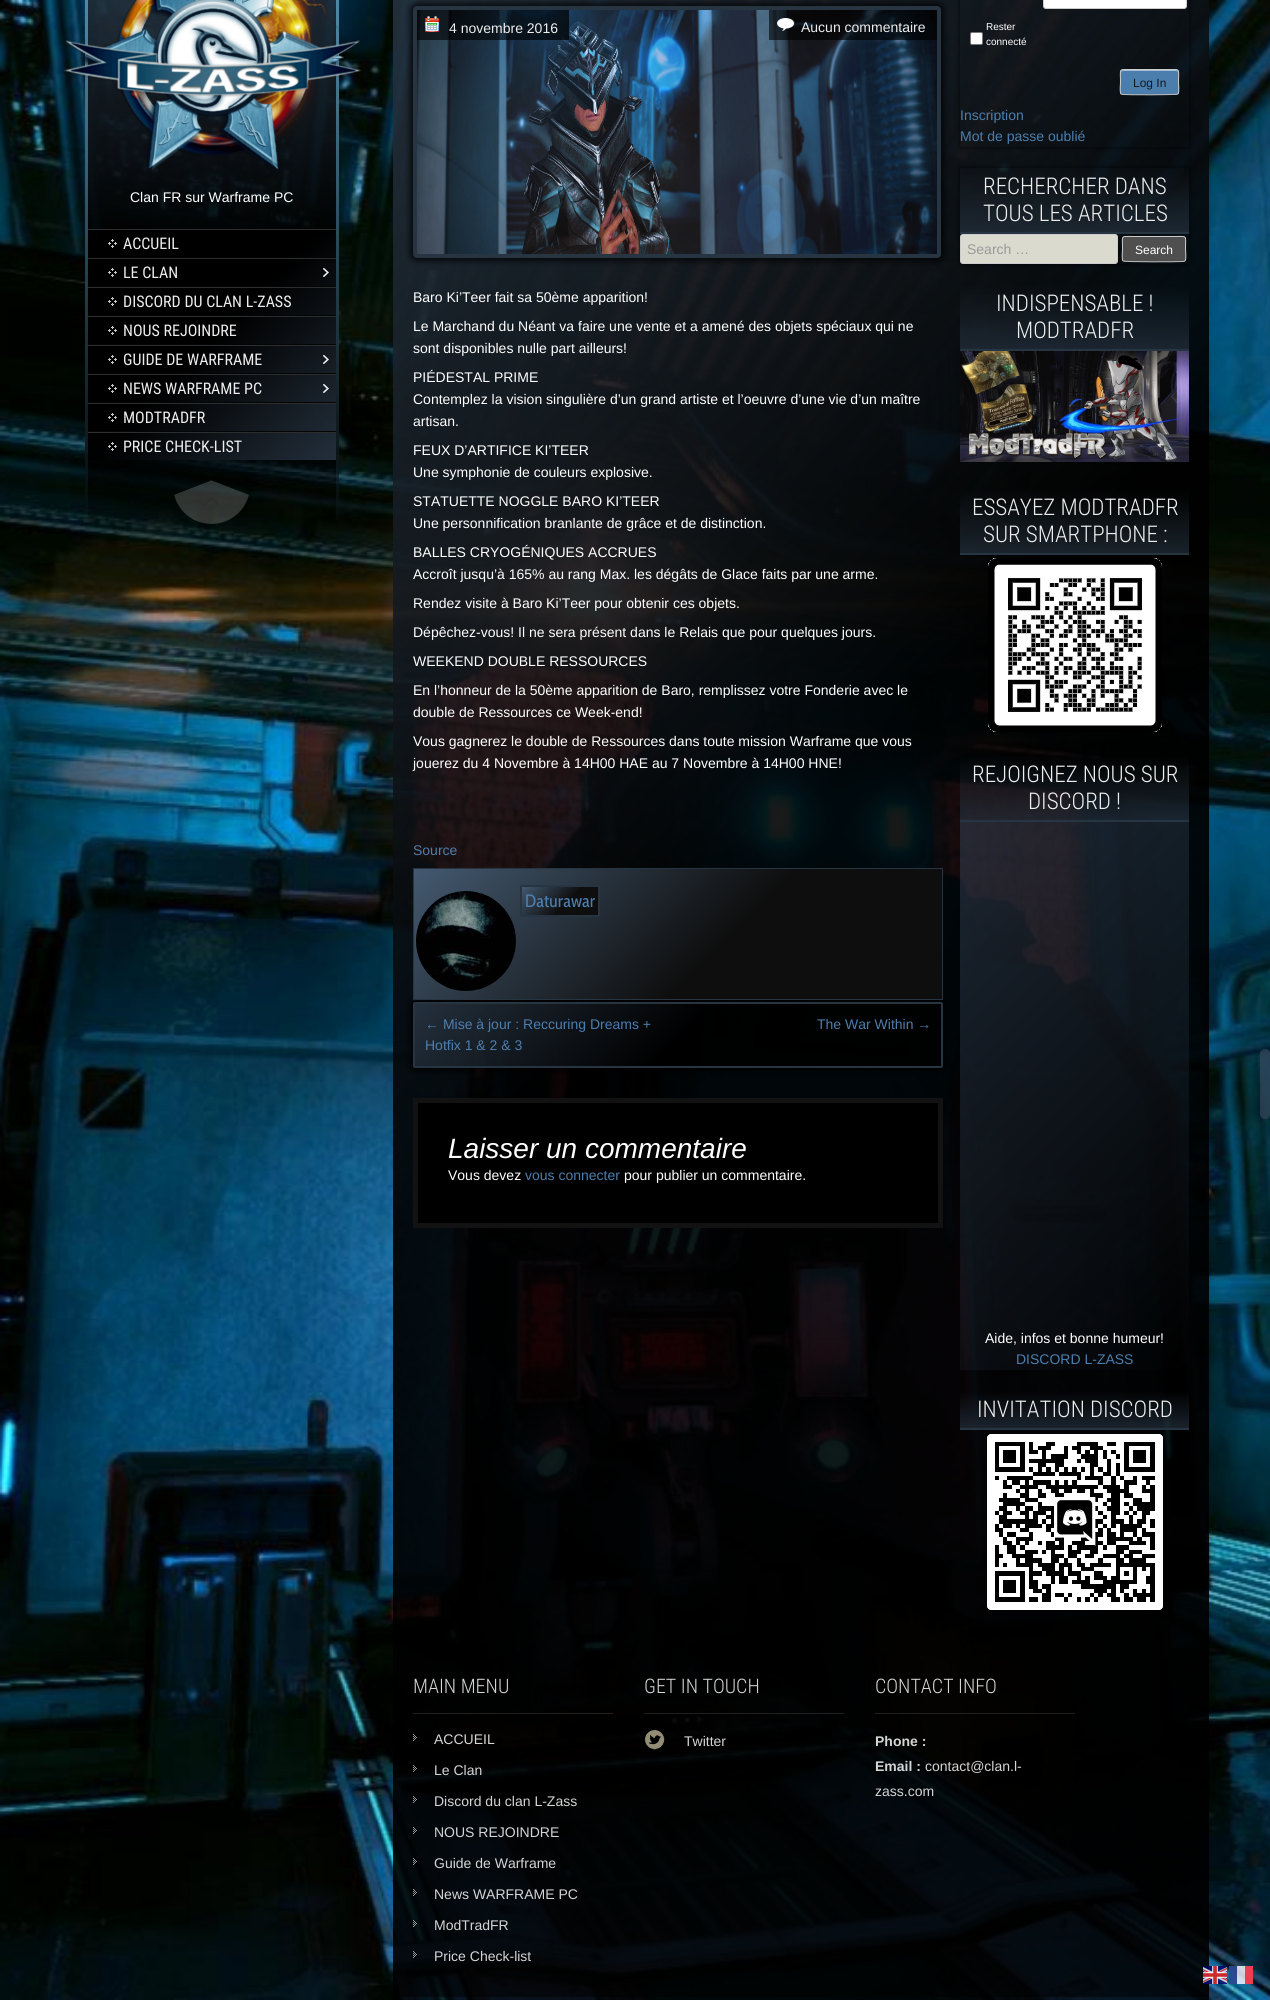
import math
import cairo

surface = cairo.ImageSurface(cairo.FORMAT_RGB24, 1270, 2000)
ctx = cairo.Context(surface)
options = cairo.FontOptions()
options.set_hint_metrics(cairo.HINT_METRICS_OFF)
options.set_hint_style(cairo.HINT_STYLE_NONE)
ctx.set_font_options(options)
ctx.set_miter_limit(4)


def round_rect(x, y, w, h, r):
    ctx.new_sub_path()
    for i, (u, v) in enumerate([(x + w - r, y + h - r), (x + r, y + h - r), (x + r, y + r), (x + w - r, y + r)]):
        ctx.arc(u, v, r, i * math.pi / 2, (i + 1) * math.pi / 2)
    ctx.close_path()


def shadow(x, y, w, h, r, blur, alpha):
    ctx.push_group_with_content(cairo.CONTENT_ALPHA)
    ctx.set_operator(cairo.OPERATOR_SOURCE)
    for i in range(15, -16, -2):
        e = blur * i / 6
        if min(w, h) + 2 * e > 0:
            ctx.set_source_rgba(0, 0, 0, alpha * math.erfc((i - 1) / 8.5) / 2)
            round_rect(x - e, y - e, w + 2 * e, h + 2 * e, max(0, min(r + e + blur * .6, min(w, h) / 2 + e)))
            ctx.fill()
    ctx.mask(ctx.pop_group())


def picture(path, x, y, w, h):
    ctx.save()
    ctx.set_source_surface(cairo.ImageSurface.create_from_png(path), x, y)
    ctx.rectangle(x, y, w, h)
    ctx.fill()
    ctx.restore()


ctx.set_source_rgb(1, 1, 1)
ctx.paint()
picture("img1.png", 0, 0, 1270, 2000)
picture("img2.png", 85, 0, 254, 520)
picture("img3.png", 64, 0, 298, 171)
ctx.select_font_face("Liberation Sans")
ctx.set_font_size(14)
ctx.set_source_rgb(1, 1, 1)
ctx.move_to(130, 202)
ctx.show_text("Clan FR sur Warframe PC")
ctx.set_source_rgb(0.173, 0.176, 0.18)
ctx.rectangle(88, 229, 248, 1)
ctx.fill()
ctx.set_source_rgb(0.016, 0.02, 0.024)
ctx.rectangle(88, 257, 248, 1)
ctx.fill()
picture("img4.png", 108, 239, 9, 9)
ctx.select_font_face("Roboto Condensed")
ctx.set_font_size(16)
ctx.set_source_rgb(0.933, 0.929, 0.929)
ctx.move_to(123, 249)
ctx.show_text("ACCUEIL")
picture("img5.png", 323, 268, 6, 9)
ctx.set_source_rgb(0.173, 0.176, 0.18)
ctx.rectangle(88, 258, 248, 1)
ctx.fill()
ctx.set_source_rgb(0.016, 0.02, 0.024)
ctx.rectangle(88, 286, 248, 1)
ctx.fill()
picture("img4.png", 108, 268, 9, 9)
ctx.set_source_rgb(0.933, 0.929, 0.929)
ctx.move_to(123, 278)
ctx.show_text("LE CLAN")
ctx.set_source_rgb(0.173, 0.176, 0.18)
ctx.rectangle(88, 287, 248, 1)
ctx.fill()
ctx.set_source_rgb(0.016, 0.02, 0.024)
ctx.rectangle(88, 315, 248, 1)
ctx.fill()
picture("img4.png", 108, 297, 9, 9)
ctx.set_source_rgb(0.933, 0.929, 0.929)
ctx.move_to(123, 307)
ctx.show_text("DISCORD DU CLAN L-ZASS")
ctx.set_source_rgb(0.173, 0.176, 0.18)
ctx.rectangle(88, 316, 248, 1)
ctx.fill()
ctx.set_source_rgb(0.016, 0.02, 0.024)
ctx.rectangle(88, 344, 248, 1)
ctx.fill()
picture("img4.png", 108, 326, 9, 9)
ctx.set_source_rgb(0.933, 0.929, 0.929)
ctx.move_to(123, 336)
ctx.show_text("NOUS REJOINDRE")
picture("img6.png", 323, 355, 6, 9)
ctx.set_source_rgb(0.173, 0.176, 0.18)
ctx.rectangle(88, 345, 248, 1)
ctx.fill()
ctx.set_source_rgb(0.016, 0.02, 0.024)
ctx.rectangle(88, 373, 248, 1)
ctx.fill()
picture("img4.png", 108, 355, 9, 9)
ctx.set_source_rgb(0.933, 0.929, 0.929)
ctx.move_to(123, 365)
ctx.show_text("GUIDE DE WARFRAME")
picture("img7.png", 323, 384, 6, 9)
ctx.set_source_rgb(0.173, 0.176, 0.18)
ctx.rectangle(88, 374, 248, 1)
ctx.fill()
ctx.set_source_rgb(0.016, 0.02, 0.024)
ctx.rectangle(88, 402, 248, 1)
ctx.fill()
picture("img4.png", 108, 384, 9, 9)
ctx.set_source_rgb(0.933, 0.929, 0.929)
ctx.move_to(123, 394)
ctx.show_text("NEWS WARFRAME PC")
ctx.set_source_rgb(0.173, 0.176, 0.18)
ctx.rectangle(88, 403, 248, 1)
ctx.fill()
ctx.set_source_rgb(0.016, 0.02, 0.024)
ctx.rectangle(88, 431, 248, 1)
ctx.fill()
picture("img4.png", 108, 413, 9, 9)
ctx.set_source_rgb(0.933, 0.929, 0.929)
ctx.move_to(123, 423)
ctx.show_text("MODTRADFR")
ctx.set_source_rgb(0.173, 0.176, 0.18)
ctx.rectangle(88, 432, 248, 1)
ctx.fill()
picture("img8.png", 108, 442, 9, 9)
ctx.set_source_rgb(0.933, 0.929, 0.929)
ctx.move_to(123, 452)
ctx.show_text("PRICE CHECK-LIST")
picture("img9.png", 174, 480, 75, 44)
ctx.set_source_rgb(0, 0, 0)
shadow(410, 3, 534, 258, 7, 3, 0.75)
round_rect(415, 8, 524, 248, 2)
ctx.set_source_rgb(0.153, 0.204, 0.259)
ctx.set_line_width(4)
ctx.stroke()
picture("img10.png", 417, 10, 520, 244)
picture("img11.png", 417, 10, 152, 30)
ctx.select_font_face("Liberation Sans")
ctx.set_font_size(14)
ctx.set_source_rgb(0.933, 0.929, 0.929)
ctx.move_to(449, 33)
ctx.show_text("4 novembre 2016")
picture("img12.png", 769, 10, 168, 30)
ctx.move_to(801, 32)
ctx.show_text("Aucun commentaire")
ctx.set_source_rgb(1, 1, 1)
ctx.move_to(413, 302)
ctx.show_text("Baro Ki’Teer fait sa 50ème apparition!")
ctx.move_to(413, 331)
ctx.show_text("Le Marchand du Néant va faire une vente et a amené des objets spéciaux qui ne")
ctx.move_to(413, 353)
ctx.show_text("sont disponibles nulle part ailleurs!")
ctx.move_to(413, 382)
ctx.show_text("PIÉDESTAL PRIME")
ctx.move_to(413, 404)
ctx.show_text("Contemplez la vision singulière d’un grand artiste et l’oeuvre d’une vie d’un maître")
ctx.move_to(413, 426)
ctx.show_text("artisan.")
ctx.move_to(413, 455)
ctx.show_text("FEUX D’ARTIFICE KI’TEER")
ctx.move_to(413, 477)
ctx.show_text("Une symphonie de couleurs explosive.")
ctx.move_to(413, 506)
ctx.show_text("STATUETTE NOGGLE BARO KI’TEER")
ctx.move_to(413, 528)
ctx.show_text("Une personnification branlante de grâce et de distinction.")
ctx.move_to(413, 557)
ctx.show_text("BALLES CRYOGÉNIQUES ACCRUES")
ctx.move_to(413, 579)
ctx.show_text("Accroît jusqu’à 165% au rang Max. les dégâts de Glace faits par une arme.")
ctx.move_to(413, 608)
ctx.show_text("Rendez visite à Baro Ki’Teer pour obtenir ces objets.")
ctx.move_to(413, 637)
ctx.show_text("Dépêchez-vous! Il ne sera présent dans le Relais que pour quelques jours.")
ctx.move_to(413, 666)
ctx.show_text("WEEKEND DOUBLE RESSOURCES")
ctx.move_to(413, 695)
ctx.show_text("En l’honneur de la 50ème apparition de Baro, remplissez votre Fonderie avec le")
ctx.move_to(413, 717)
ctx.show_text("double de Ressources ce Week-end!")
ctx.move_to(413, 746)
ctx.show_text("Vous gagnerez le double de Ressources dans toute mission Warframe que vous")
ctx.move_to(413, 768)
ctx.show_text("jouerez du 4 Novembre à 14H00 HAE au 7 Novembre à 14H00 HNE!")
ctx.set_source_rgb(0.298, 0.494, 0.678)
ctx.move_to(413, 855)
ctx.show_text("Source")
ctx.save()
ctx.set_fill_rule(cairo.FILL_RULE_EVEN_ODD)
ctx.new_path()
ctx.move_to(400, 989)
ctx.line_to(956, 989)
ctx.line_to(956, 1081)
ctx.line_to(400, 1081)
ctx.close_path()
ctx.move_to(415, 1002)
ctx.line_to(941, 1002)
ctx.curve_to(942, 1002, 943, 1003, 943, 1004)
ctx.line_to(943, 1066)
ctx.curve_to(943, 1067, 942, 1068, 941, 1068)
ctx.line_to(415, 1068)
ctx.curve_to(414, 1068, 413, 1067, 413, 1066)
ctx.line_to(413, 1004)
ctx.curve_to(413, 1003, 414, 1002, 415, 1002)
ctx.close_path()
ctx.clip()
ctx.set_source_rgb(0, 0, 0)
shadow(410, 999, 536, 72, 5, 3, 0.75)
ctx.restore()
gradient = cairo.LinearGradient(514, 770, 843, 1099)
gradient.add_color_stop_rgba(0, 0.263, 0.349, 0.439, 1)
gradient.add_color_stop_rgba(0.58, 0.055, 0.055, 0.055, 1)
ctx.set_source(gradient)
ctx.rectangle(414, 869, 528, 130)
ctx.fill()
ctx.rectangle(413.5, 868.5, 529, 131)
ctx.set_source_rgb(0.153, 0.204, 0.259)
ctx.set_line_width(1)
ctx.stroke()
picture("img13.png", 416, 891, 100, 100)
gradient = cairo.LinearGradient(534, 875, 586, 927)
gradient.add_color_stop_rgba(0, 0.263, 0.349, 0.439, 1)
gradient.add_color_stop_rgba(0.58, 0.055, 0.055, 0.055, 1)
ctx.set_source(gradient)
ctx.rectangle(522, 887, 76, 28)
ctx.fill()
round_rect(521, 886, 78, 30, 1)
ctx.set_source_rgb(0.153, 0.204, 0.259)
ctx.set_line_width(2)
ctx.stroke()
ctx.select_font_face("Cabin Condensed")
ctx.set_font_size(18)
ctx.set_source_rgb(0.298, 0.494, 0.678)
ctx.move_to(525, 907)
ctx.show_text("Daturawar")
round_rect(414, 1003, 528, 64, 1)
ctx.set_source_rgb(0.153, 0.204, 0.259)
ctx.stroke()
ctx.select_font_face("Liberation Sans")
ctx.set_font_size(14)
ctx.set_source_rgb(0.298, 0.494, 0.678)
ctx.move_to(425, 1029)
ctx.show_text("← Mise à jour : Reccuring Dreams +")
ctx.move_to(425, 1050)
ctx.show_text("Hotfix 1 & 2 & 3")
ctx.move_to(817, 1029)
ctx.show_text("The War Within →")
ctx.set_source_rgb(0, 0, 0)
ctx.rectangle(415.5, 1100.5, 525, 125)
ctx.fill_preserve()
ctx.set_source_rgb(0.071, 0.071, 0.071)
ctx.set_line_width(5)
ctx.stroke()
ctx.select_font_face("Liberation Sans", cairo.FONT_SLANT_ITALIC)
ctx.set_font_size(28)
ctx.set_source_rgb(1, 1, 1)
ctx.move_to(448, 1158)
ctx.show_text("Laisser un commentaire")
ctx.select_font_face("Liberation Sans")
ctx.set_font_size(14)
ctx.move_to(448, 1180)
ctx.show_text("Vous devez")
ctx.set_source_rgb(0.298, 0.494, 0.678)
ctx.move_to(525, 1180)
ctx.show_text("vous connecter")
ctx.set_source_rgb(1, 1, 1)
ctx.move_to(624, 1180)
ctx.show_text("pour publier un commentaire.")
ctx.save()
ctx.set_fill_rule(cairo.FILL_RULE_EVEN_ODD)
ctx.new_path()
ctx.move_to(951, 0)
ctx.line_to(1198, 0)
ctx.line_to(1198, 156)
ctx.line_to(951, 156)
ctx.close_path()
ctx.move_to(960, -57)
ctx.line_to(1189, -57)
ctx.line_to(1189, 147)
ctx.line_to(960, 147)
ctx.close_path()
ctx.clip()
ctx.set_source_rgb(0, 0, 0)
shadow(960, -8, 229, 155, 0, 2.5, 0.75)
ctx.restore()
round_rect(1043.5, -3.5, 143, 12, 2.5)
ctx.fill_preserve()
ctx.set_source_rgb(0.8, 0.8, 0.8)
ctx.set_line_width(1)
ctx.stroke()
ctx.set_source_rgb(1, 1, 1)
round_rect(970.5, 32.5, 12, 12, 1.5)
ctx.fill_preserve()
ctx.set_source_rgb(0.463, 0.463, 0.463)
ctx.stroke()
ctx.set_font_size(10)
ctx.set_source_rgb(1, 1, 1)
ctx.move_to(986, 30)
ctx.show_text("Rester")
ctx.move_to(986, 45)
ctx.show_text("connecté")
ctx.set_source_rgb(0.298, 0.494, 0.678)
round_rect(1120, 69, 59, 26, 3)
ctx.fill()
ctx.set_source_rgb(0.651, 0.749, 0.839)
ctx.new_path()
ctx.move_to(1123, 71)
ctx.line_to(1176, 71)
ctx.curve_to(1177, 71, 1178, 72, 1178, 73)
ctx.curve_to(1178, 68, 1171, 70, 1167, 70)
ctx.line_to(1132, 70)
ctx.curve_to(1128, 70, 1121, 68, 1121, 73)
ctx.curve_to(1121, 72, 1122, 71, 1123, 71)
ctx.close_path()
ctx.fill()
ctx.new_path()
ctx.move_to(1178, 94)
ctx.line_to(1177.5, 94)
ctx.curve_to(1176.5, 95, 1127.5, 95, 1123, 94.5)
ctx.line_to(1121, 94)
ctx.set_source_rgb(0.733, 0.733, 0.733)
ctx.stroke()
ctx.new_path()
ctx.move_to(1121, 94)
ctx.curve_to(1119.5, 92, 1120.5, 84.5, 1120.5, 82)
ctx.curve_to(1120.5, 68, 1118, 69.5, 1132, 69.5)
ctx.line_to(1167, 69.5)
ctx.curve_to(1181, 69.5, 1178.5, 68, 1178.5, 82)
ctx.curve_to(1178.5, 84.5, 1179.5, 92, 1178, 94)
ctx.set_source_rgb(0.8, 0.8, 0.8)
ctx.stroke()
ctx.set_font_size(12)
ctx.set_source_rgb(0.059, 0.098, 0.137)
ctx.move_to(1133, 87)
ctx.show_text("Log In")
ctx.set_font_size(14)
ctx.set_source_rgb(0.298, 0.494, 0.678)
ctx.move_to(960, 120)
ctx.show_text("Inscription")
ctx.move_to(960, 141)
ctx.show_text("Mot de passe oublié")
ctx.save()
ctx.set_fill_rule(cairo.FILL_RULE_EVEN_ODD)
ctx.new_path()
ctx.move_to(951, 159)
ctx.line_to(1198, 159)
ctx.line_to(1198, 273)
ctx.line_to(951, 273)
ctx.close_path()
ctx.move_to(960, 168)
ctx.line_to(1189, 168)
ctx.line_to(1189, 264)
ctx.line_to(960, 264)
ctx.close_path()
ctx.clip()
ctx.set_source_rgb(0, 0, 0)
shadow(960, 168, 229, 96, 0, 2.5, 0.75)
ctx.restore()
ctx.set_source_rgb(0.153, 0.204, 0.259)
ctx.rectangle(960, 232, 229, 2)
ctx.fill()
ctx.select_font_face("Roboto Condensed Light")
ctx.set_font_size(23)
ctx.set_source_rgb(0.933, 0.929, 0.929)
ctx.move_to(983, 194)
ctx.show_text("RECHERCHER DANS")
ctx.move_to(983, 221)
ctx.show_text("TOUS LES ARTICLES")
ctx.set_source_rgb(0.859, 0.855, 0.812)
round_rect(960.5, 234.5, 157, 29, 2.5)
ctx.fill_preserve()
ctx.set_source_rgb(0.8, 0.8, 0.8)
ctx.stroke()
ctx.select_font_face("Liberation Sans")
ctx.set_font_size(14)
ctx.set_source_rgb(0.6, 0.6, 0.6)
ctx.move_to(967, 254)
ctx.show_text("Search …")
ctx.set_source_rgb(0.31, 0.31, 0.31)
round_rect(1122, 236, 64, 26, 3)
ctx.fill()
ctx.new_path()
ctx.move_to(1185, 261)
ctx.line_to(1183, 261.5)
ctx.curve_to(1178, 262, 1124.5, 262, 1123.5, 261)
ctx.line_to(1123, 261)
ctx.set_source_rgb(0.733, 0.733, 0.733)
ctx.stroke()
ctx.new_path()
ctx.move_to(1123, 261)
ctx.curve_to(1121.5, 259, 1122.5, 251.5, 1122.5, 249)
ctx.curve_to(1122.5, 234.5, 1120, 236.5, 1134.5, 236.5)
ctx.line_to(1173.5, 236.5)
ctx.curve_to(1188, 236.5, 1185.5, 234.5, 1185.5, 249)
ctx.curve_to(1185.5, 251.5, 1186.5, 259, 1185, 261)
ctx.set_source_rgb(0.8, 0.8, 0.8)
ctx.stroke()
ctx.set_font_size(12)
ctx.set_source_rgb(1, 1, 1)
ctx.move_to(1135, 254)
ctx.show_text("Search")
ctx.set_source_rgb(0.153, 0.204, 0.259)
ctx.rectangle(960, 349, 229, 2)
ctx.fill()
ctx.select_font_face("Roboto Condensed Light")
ctx.set_font_size(23)
ctx.set_source_rgb(0.933, 0.929, 0.929)
ctx.move_to(996, 311)
ctx.show_text("INDISPENSABLE !")
ctx.move_to(1016, 338)
ctx.show_text("MODTRADFR")
picture("img14.png", 960, 351, 229, 111)
ctx.set_source_rgb(0.153, 0.204, 0.259)
ctx.rectangle(960, 553, 229, 2)
ctx.fill()
ctx.set_source_rgb(0.933, 0.929, 0.929)
ctx.move_to(972, 515)
ctx.show_text("ESSAYEZ MODTRADFR")
ctx.move_to(983, 542)
ctx.show_text("SUR SMARTPHONE :")
picture("img15.png", 988, 558, 174, 174)
ctx.set_source_rgb(0.153, 0.204, 0.259)
ctx.rectangle(960, 820, 229, 2)
ctx.fill()
ctx.set_source_rgb(0.933, 0.929, 0.929)
ctx.move_to(972, 782)
ctx.show_text("REJOIGNEZ NOUS SUR")
ctx.move_to(1028, 809)
ctx.show_text("DISCORD !")
ctx.select_font_face("Liberation Sans")
ctx.set_font_size(14)
ctx.set_source_rgb(1, 1, 1)
ctx.move_to(985, 1343)
ctx.show_text("Aide, infos et bonne humeur!")
ctx.set_source_rgb(0.298, 0.494, 0.678)
ctx.move_to(1016, 1364)
ctx.show_text("DISCORD L-ZASS")
ctx.set_source_rgb(0.153, 0.204, 0.259)
ctx.rectangle(960, 1428, 229, 2)
ctx.fill()
ctx.select_font_face("Roboto Condensed Light")
ctx.set_font_size(23)
ctx.set_source_rgb(0.933, 0.929, 0.929)
ctx.move_to(977, 1417)
ctx.show_text("INVITATION DISCORD")
picture("img16.png", 987, 1434, 176, 176)
ctx.set_source_rgba(0, 0, 0, 0.9)
ctx.rectangle(393, 1655, 816, 342)
ctx.fill()
ctx.set_source_rgb(0.129, 0.129, 0.129)
ctx.rectangle(413, 1713, 200, 1)
ctx.fill()
ctx.set_font_size(20)
ctx.set_source_rgb(0.839, 0.835, 0.835)
ctx.move_to(413, 1693)
ctx.show_text("MAIN MENU")
picture("img17.png", 413, 1734, 4, 7)
ctx.select_font_face("Liberation Sans")
ctx.set_font_size(14)
ctx.move_to(434, 1744)
ctx.show_text("ACCUEIL")
picture("img18.png", 413, 1765, 4, 7)
ctx.move_to(434, 1775)
ctx.show_text("Le Clan")
picture("img19.png", 413, 1796, 4, 7)
ctx.move_to(434, 1806)
ctx.show_text("Discord du clan L-Zass")
picture("img20.png", 413, 1827, 4, 7)
ctx.move_to(434, 1837)
ctx.show_text("NOUS REJOINDRE")
picture("img21.png", 413, 1858, 4, 7)
ctx.move_to(434, 1868)
ctx.show_text("Guide de Warframe")
picture("img22.png", 413, 1889, 4, 7)
ctx.move_to(434, 1899)
ctx.show_text("News WARFRAME PC")
picture("img23.png", 413, 1920, 4, 7)
ctx.move_to(434, 1930)
ctx.show_text("ModTradFR")
picture("img24.png", 413, 1951, 4, 7)
ctx.move_to(434, 1961)
ctx.show_text("Price Check-list")
ctx.set_source_rgba(0.141, 0.141, 0.145, 0.9)
ctx.rectangle(644, 1713, 200, 1)
ctx.fill()
ctx.select_font_face("Roboto Condensed Light")
ctx.set_font_size(20)
ctx.set_source_rgb(0.839, 0.835, 0.835)
ctx.move_to(644, 1693)
ctx.show_text("GET IN TOUCH")
picture("img25.png", 644, 1729, 21, 21)
ctx.select_font_face("Liberation Sans")
ctx.set_font_size(14)
ctx.move_to(684, 1746)
ctx.show_text("Twitter")
ctx.set_source_rgba(0.141, 0.141, 0.145, 0.9)
ctx.rectangle(875, 1713, 200, 1)
ctx.fill()
ctx.select_font_face("Roboto Condensed Light")
ctx.set_font_size(20)
ctx.set_source_rgb(0.839, 0.835, 0.835)
ctx.move_to(875, 1693)
ctx.show_text("CONTACT INFO")
ctx.select_font_face("Liberation Sans", cairo.FONT_SLANT_NORMAL, cairo.FONT_WEIGHT_BOLD)
ctx.set_font_size(14)
ctx.move_to(875, 1746)
ctx.show_text("Phone :")
ctx.move_to(875, 1771)
ctx.show_text("Email :")
ctx.select_font_face("Liberation Sans")
ctx.move_to(925, 1771)
ctx.show_text("contact@clan.l-")
ctx.move_to(875, 1796)
ctx.show_text("zass.com")
ctx.set_source_rgba(0, 0, 0, 0.8)
ctx.rectangle(393, 1997, 816, 3)
ctx.fill()
ctx.set_source_rgba(0.212, 0.275, 0.357, 0.71)
round_rect(1260, 1049, 10, 70, 5)
ctx.fill()
picture("img26.png", 1203, 1966, 24, 18)
ctx.set_source_rgba(1, 1, 1, 0.8)
ctx.rectangle(1229, 1966, 24, 18)
ctx.fill()
ctx.set_source_rgba(0, 0.149, 0.498, 0.8)
ctx.rectangle(1229, 1966, 8, 18)
ctx.fill()
ctx.set_source_rgba(0.953, 0.094, 0.188, 0.8)
ctx.rectangle(1245, 1966, 8, 18)
ctx.fill()
surface.write_to_png("page.png")
